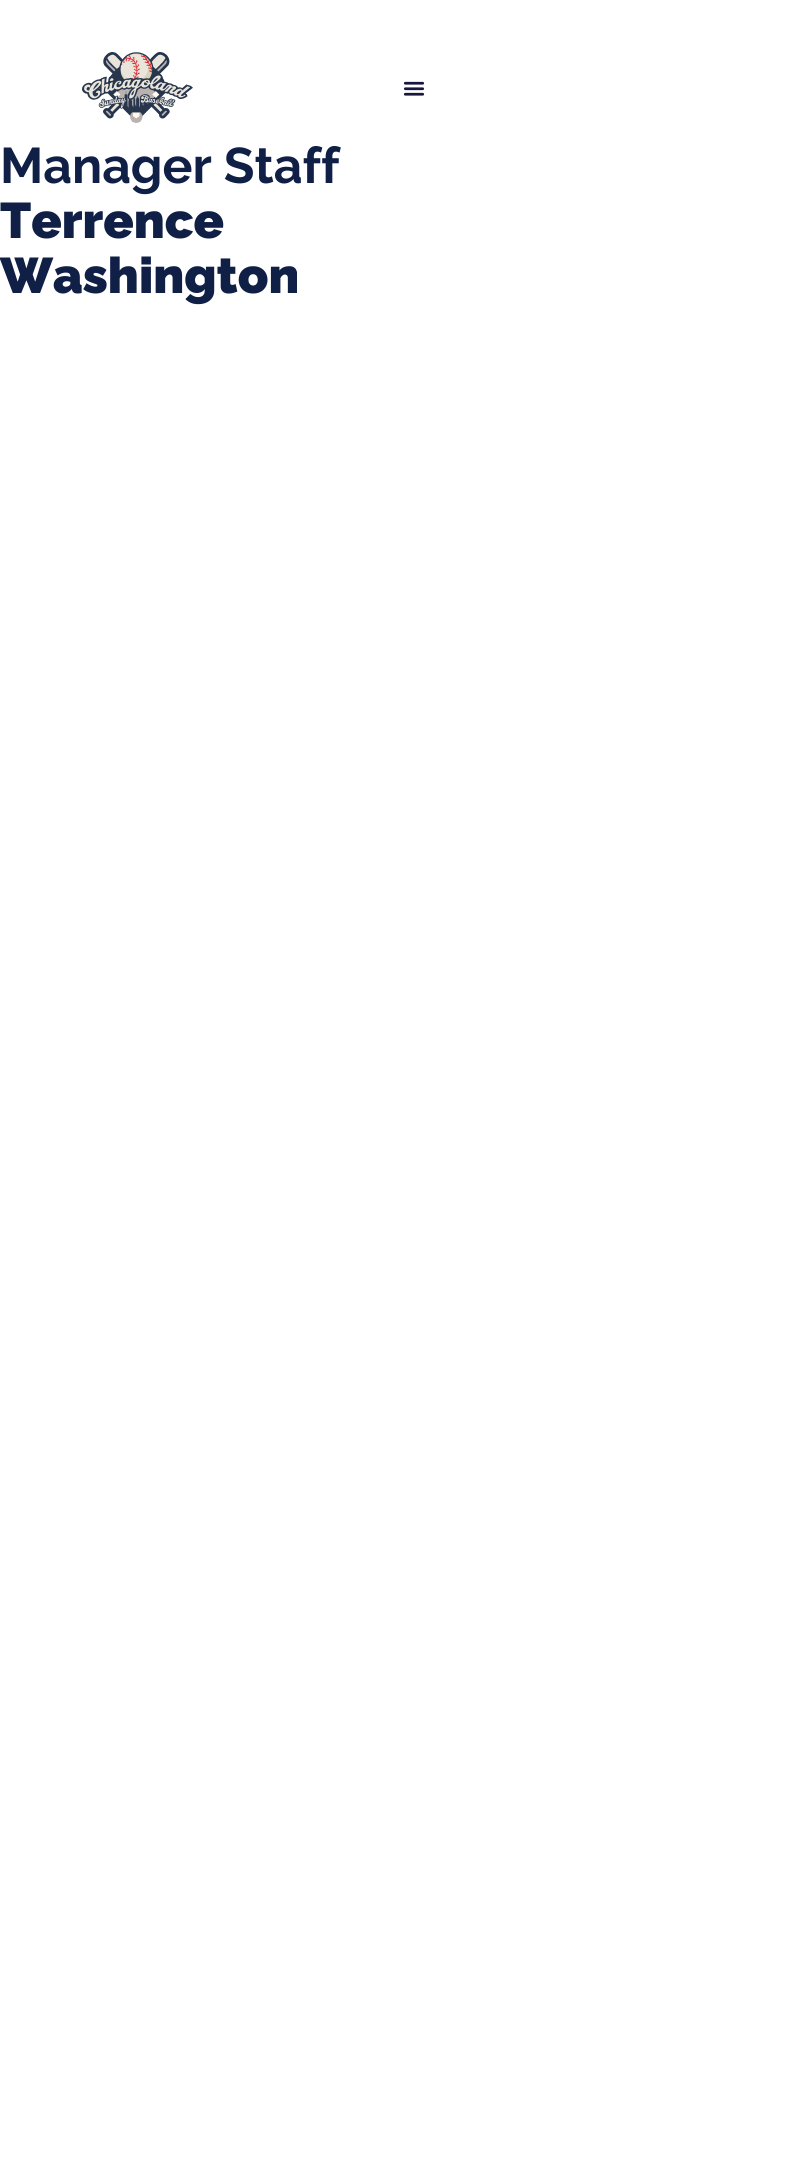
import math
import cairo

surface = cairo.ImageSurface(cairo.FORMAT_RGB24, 800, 2181)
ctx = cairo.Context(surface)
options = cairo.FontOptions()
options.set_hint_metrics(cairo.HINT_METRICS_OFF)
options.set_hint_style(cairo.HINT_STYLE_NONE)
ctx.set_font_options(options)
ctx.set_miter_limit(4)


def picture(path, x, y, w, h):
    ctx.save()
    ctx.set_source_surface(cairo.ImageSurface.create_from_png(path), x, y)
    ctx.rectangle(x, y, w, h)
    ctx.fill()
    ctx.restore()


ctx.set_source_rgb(1, 1, 1)
ctx.paint()
picture("img1.png", 82, 52, 111, 71)
picture("img2.png", 403, 81, 22, 15)
ctx.select_font_face("Raleway", cairo.FONT_SLANT_NORMAL, cairo.FONT_WEIGHT_BOLD)
ctx.set_font_size(50)
ctx.set_source_rgb(0.063, 0.122, 0.275)
ctx.move_to(0, 183)
ctx.show_text("Manager Staff")
ctx.select_font_face("Raleway Black")
ctx.move_to(0, 238)
ctx.show_text("Terrence")
ctx.move_to(0, 293)
ctx.show_text("Washington")
surface.write_to_png("page.png")
